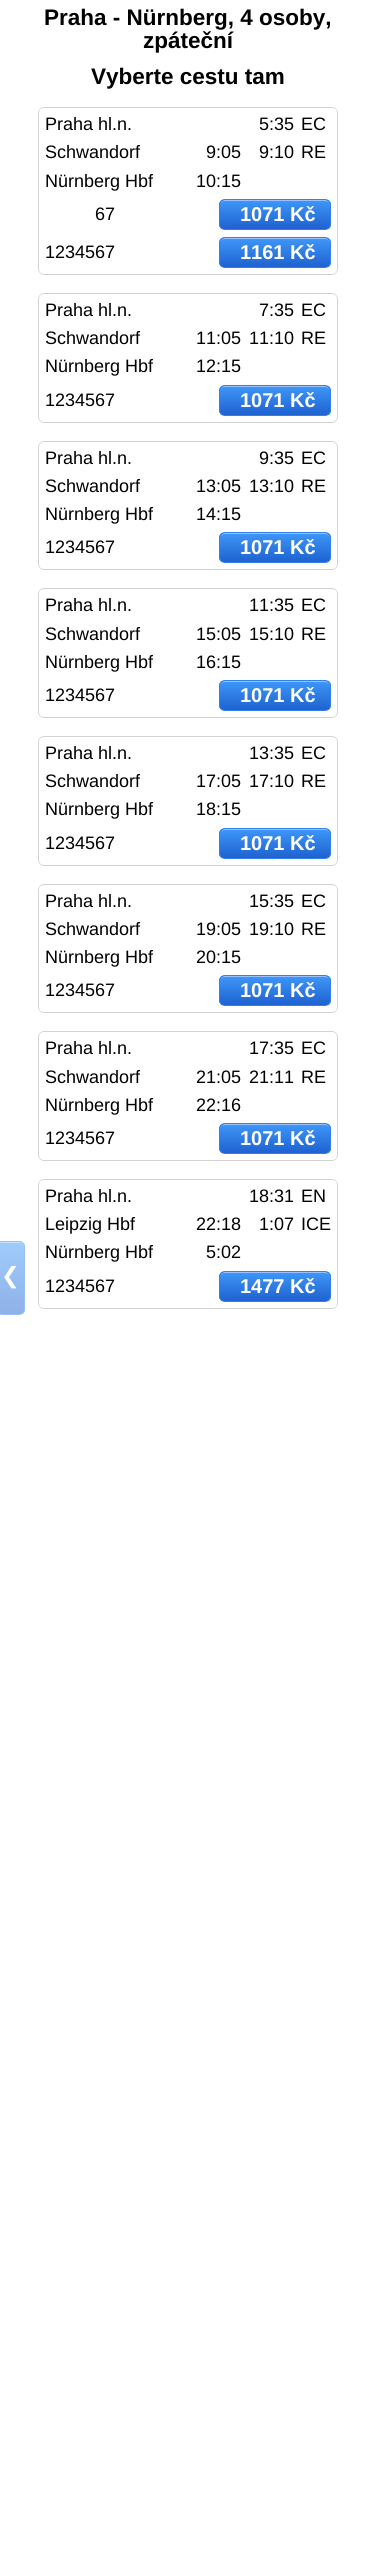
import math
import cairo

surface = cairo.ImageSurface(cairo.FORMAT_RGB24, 376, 2563)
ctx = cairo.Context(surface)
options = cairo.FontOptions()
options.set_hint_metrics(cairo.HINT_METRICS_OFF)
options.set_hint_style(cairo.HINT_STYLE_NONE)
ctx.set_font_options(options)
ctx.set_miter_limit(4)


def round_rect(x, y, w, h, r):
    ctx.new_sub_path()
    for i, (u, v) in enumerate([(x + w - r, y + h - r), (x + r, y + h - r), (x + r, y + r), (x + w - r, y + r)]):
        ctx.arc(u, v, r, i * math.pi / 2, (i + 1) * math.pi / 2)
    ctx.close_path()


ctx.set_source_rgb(1, 1, 1)
ctx.paint()
ctx.select_font_face("Liberation Sans", cairo.FONT_SLANT_NORMAL, cairo.FONT_WEIGHT_BOLD)
ctx.set_font_size(22.5)
ctx.set_source_rgb(0, 0, 0)
ctx.move_to(44, 25)
ctx.show_text("Praha - Nürnberg, 4 osoby,")
ctx.move_to(143, 48)
ctx.show_text("zpáteční")
ctx.save()
round_rect(-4, 1241, 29, 74, 6)
ctx.clip()
gradient = cairo.LinearGradient(10, 1242, 11, 1314)
gradient.add_color_stop_rgba(0.05, 0.62, 0.792, 0.984, 1)
gradient.add_color_stop_rgba(1, 0.561, 0.694, 0.91, 1)
ctx.set_source(gradient)
ctx.rectangle(0, 1242, 25, 72)
ctx.fill()
ctx.restore()
ctx.set_source_rgb(0.796, 0.886, 1)
ctx.new_path()
ctx.move_to(2, 1243)
ctx.line_to(19, 1243)
ctx.curve_to(22, 1243, 24, 1245, 24, 1248)
ctx.curve_to(24, 1242.5, 21, 1242, 16, 1242)
ctx.line_to(5, 1242)
ctx.curve_to(0, 1242, -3, 1242.5, -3, 1248)
ctx.curve_to(-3, 1245, -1, 1243, 2, 1243)
ctx.close_path()
ctx.fill()
round_rect(-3.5, 1241.5, 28, 73, 5.5)
ctx.set_source_rgb(0.6, 0.749, 0.965)
ctx.set_line_width(1)
ctx.stroke()
ctx.select_font_face("DejaVu Sans")
ctx.set_source_rgb(1, 1, 1)
ctx.move_to(1, 1283)
ctx.show_text("❮")
ctx.select_font_face("Liberation Sans", cairo.FONT_SLANT_NORMAL, cairo.FONT_WEIGHT_BOLD)
ctx.set_source_rgb(0, 0, 0)
ctx.move_to(91, 84)
ctx.show_text("Vyberte cestu tam")
ctx.set_source_rgb(0.827, 0.827, 0.827)
ctx.rectangle(193, 107, 104, 1)
ctx.fill()
ctx.set_fill_rule(cairo.FILL_RULE_EVEN_ODD)
ctx.new_path()
ctx.move_to(44, 107)
ctx.line_to(193, 107)
ctx.line_to(193, 139)
ctx.line_to(38, 139)
ctx.line_to(38, 113)
ctx.curve_to(38, 110, 41, 107, 44, 107)
ctx.close_path()
ctx.move_to(44, 108)
ctx.line_to(193, 108)
ctx.line_to(193, 139)
ctx.line_to(39, 139)
ctx.line_to(39, 113)
ctx.curve_to(39, 110, 41, 108, 44, 108)
ctx.close_path()
ctx.fill()
ctx.select_font_face("Liberation Sans")
ctx.set_font_size(18)
ctx.set_source_rgb(0, 0, 0)
ctx.move_to(45, 130)
ctx.show_text("Praha hl.n.")
ctx.move_to(259, 130)
ctx.show_text("5:35")
ctx.set_source_rgb(0.827, 0.827, 0.827)
ctx.new_path()
ctx.move_to(297, 107)
ctx.line_to(332, 107)
ctx.curve_to(335, 107, 338, 110, 338, 113)
ctx.line_to(338, 139)
ctx.line_to(297, 139)
ctx.close_path()
ctx.move_to(297, 108)
ctx.line_to(332, 108)
ctx.curve_to(335, 108, 337, 110, 337, 113)
ctx.line_to(337, 139)
ctx.line_to(297, 139)
ctx.close_path()
ctx.fill()
ctx.set_source_rgb(0, 0, 0)
ctx.move_to(301, 130)
ctx.show_text("EC")
ctx.set_source_rgb(0.827, 0.827, 0.827)
ctx.rectangle(38, 139, 1, 94)
ctx.fill()
ctx.set_source_rgb(0, 0, 0)
ctx.move_to(45, 158)
ctx.show_text("Schwandorf")
ctx.move_to(206, 158)
ctx.show_text("9:05")
ctx.move_to(259, 158)
ctx.show_text("9:10")
ctx.set_source_rgb(0.827, 0.827, 0.827)
ctx.rectangle(337, 139, 1, 94)
ctx.fill()
ctx.set_source_rgb(0, 0, 0)
ctx.move_to(301, 158)
ctx.show_text("RE")
ctx.move_to(45, 187)
ctx.show_text("Nürnberg Hbf")
ctx.move_to(196, 187)
ctx.show_text("10:15")
ctx.move_to(95, 220)
ctx.show_text("67")
ctx.save()
ctx.set_fill_rule(cairo.FILL_RULE_WINDING)
round_rect(219, 199, 112, 31, 6)
ctx.clip()
gradient = cairo.LinearGradient(275, 200, 275, 229)
gradient.add_color_stop_rgba(0.05, 0.239, 0.58, 0.965, 1)
gradient.add_color_stop_rgba(1, 0.118, 0.384, 0.816, 1)
ctx.set_source(gradient)
ctx.rectangle(219, 200, 112, 29)
ctx.fill()
ctx.restore()
ctx.set_source_rgb(0.592, 0.769, 0.996)
ctx.set_fill_rule(cairo.FILL_RULE_WINDING)
ctx.new_path()
ctx.move_to(225, 201)
ctx.line_to(325, 201)
ctx.curve_to(328, 201, 330, 203, 330, 206)
ctx.curve_to(330, 196, 313, 200, 308, 200)
ctx.line_to(242, 200)
ctx.curve_to(237, 200, 220, 196, 220, 206)
ctx.curve_to(220, 203, 222, 201, 225, 201)
ctx.close_path()
ctx.fill()
round_rect(219.5, 199.5, 111, 30, 5.5)
ctx.set_source_rgb(0.2, 0.498, 0.929)
ctx.stroke()
ctx.select_font_face("Liberation Sans", cairo.FONT_SLANT_NORMAL, cairo.FONT_WEIGHT_BOLD)
ctx.set_font_size(20)
ctx.set_source_rgb(1, 1, 1)
ctx.move_to(240, 221)
ctx.show_text("1071 Kč")
ctx.set_source_rgb(0.827, 0.827, 0.827)
ctx.set_fill_rule(cairo.FILL_RULE_EVEN_ODD)
ctx.new_path()
ctx.move_to(38, 233)
ctx.line_to(193, 233)
ctx.line_to(193, 275)
ctx.line_to(44, 275)
ctx.curve_to(41, 275, 38, 272, 38, 269)
ctx.close_path()
ctx.move_to(39, 233)
ctx.line_to(193, 233)
ctx.line_to(193, 274)
ctx.line_to(44, 274)
ctx.curve_to(41, 274, 39, 272, 39, 269)
ctx.close_path()
ctx.fill()
ctx.select_font_face("Liberation Sans")
ctx.set_font_size(18)
ctx.set_source_rgb(0, 0, 0)
ctx.move_to(45, 258)
ctx.show_text("1234567")
ctx.set_source_rgb(0.827, 0.827, 0.827)
ctx.new_path()
ctx.move_to(193, 233)
ctx.line_to(338, 233)
ctx.line_to(338, 269)
ctx.curve_to(338, 272, 335, 275, 332, 275)
ctx.line_to(193, 275)
ctx.close_path()
ctx.move_to(193, 233)
ctx.line_to(337, 233)
ctx.line_to(337, 269)
ctx.curve_to(337, 272, 335, 274, 332, 274)
ctx.line_to(193, 274)
ctx.close_path()
ctx.fill()
ctx.save()
ctx.set_fill_rule(cairo.FILL_RULE_WINDING)
round_rect(219, 237, 112, 31, 6)
ctx.clip()
gradient = cairo.LinearGradient(275, 238, 275, 267)
gradient.add_color_stop_rgba(0.05, 0.239, 0.58, 0.965, 1)
gradient.add_color_stop_rgba(1, 0.118, 0.384, 0.816, 1)
ctx.set_source(gradient)
ctx.rectangle(219, 238, 112, 29)
ctx.fill()
ctx.restore()
ctx.set_source_rgb(0.592, 0.769, 0.996)
ctx.set_fill_rule(cairo.FILL_RULE_WINDING)
ctx.new_path()
ctx.move_to(225, 239)
ctx.line_to(325, 239)
ctx.curve_to(328, 239, 330, 241, 330, 244)
ctx.curve_to(330, 234, 313, 238, 308, 238)
ctx.line_to(242, 238)
ctx.curve_to(237, 238, 220, 234, 220, 244)
ctx.curve_to(220, 241, 222, 239, 225, 239)
ctx.close_path()
ctx.fill()
round_rect(219.5, 237.5, 111, 30, 5.5)
ctx.set_source_rgb(0.2, 0.498, 0.929)
ctx.stroke()
ctx.select_font_face("Liberation Sans", cairo.FONT_SLANT_NORMAL, cairo.FONT_WEIGHT_BOLD)
ctx.set_font_size(20)
ctx.set_source_rgb(1, 1, 1)
ctx.move_to(240, 259)
ctx.show_text("1161 Kč")
ctx.set_source_rgb(0.827, 0.827, 0.827)
ctx.rectangle(193, 293, 104, 1)
ctx.fill()
ctx.set_fill_rule(cairo.FILL_RULE_EVEN_ODD)
ctx.new_path()
ctx.move_to(44, 293)
ctx.line_to(193, 293)
ctx.line_to(193, 325)
ctx.line_to(38, 325)
ctx.line_to(38, 299)
ctx.curve_to(38, 296, 41, 293, 44, 293)
ctx.close_path()
ctx.move_to(44, 294)
ctx.line_to(193, 294)
ctx.line_to(193, 325)
ctx.line_to(39, 325)
ctx.line_to(39, 299)
ctx.curve_to(39, 296, 41, 294, 44, 294)
ctx.close_path()
ctx.fill()
ctx.select_font_face("Liberation Sans")
ctx.set_font_size(18)
ctx.set_source_rgb(0, 0, 0)
ctx.move_to(45, 316)
ctx.show_text("Praha hl.n.")
ctx.move_to(259, 316)
ctx.show_text("7:35")
ctx.set_source_rgb(0.827, 0.827, 0.827)
ctx.new_path()
ctx.move_to(297, 293)
ctx.line_to(332, 293)
ctx.curve_to(335, 293, 338, 296, 338, 299)
ctx.line_to(338, 325)
ctx.line_to(297, 325)
ctx.close_path()
ctx.move_to(297, 294)
ctx.line_to(332, 294)
ctx.curve_to(335, 294, 337, 296, 337, 299)
ctx.line_to(337, 325)
ctx.line_to(297, 325)
ctx.close_path()
ctx.fill()
ctx.set_source_rgb(0, 0, 0)
ctx.move_to(301, 316)
ctx.show_text("EC")
ctx.set_source_rgb(0.827, 0.827, 0.827)
ctx.rectangle(38, 325, 1, 56)
ctx.fill()
ctx.set_source_rgb(0, 0, 0)
ctx.move_to(45, 344)
ctx.show_text("Schwandorf")
ctx.move_to(196, 344)
ctx.show_text("11:05")
ctx.move_to(249, 344)
ctx.show_text("11:10")
ctx.set_source_rgb(0.827, 0.827, 0.827)
ctx.rectangle(337, 325, 1, 56)
ctx.fill()
ctx.set_source_rgb(0, 0, 0)
ctx.move_to(301, 344)
ctx.show_text("RE")
ctx.move_to(45, 372)
ctx.show_text("Nürnberg Hbf")
ctx.move_to(196, 372)
ctx.show_text("12:15")
ctx.set_source_rgb(0.827, 0.827, 0.827)
ctx.new_path()
ctx.move_to(38, 381)
ctx.line_to(193, 381)
ctx.line_to(193, 423)
ctx.line_to(44, 423)
ctx.curve_to(41, 423, 38, 420, 38, 417)
ctx.close_path()
ctx.move_to(39, 381)
ctx.line_to(193, 381)
ctx.line_to(193, 422)
ctx.line_to(44, 422)
ctx.curve_to(41, 422, 39, 420, 39, 417)
ctx.close_path()
ctx.fill()
ctx.set_source_rgb(0, 0, 0)
ctx.move_to(45, 406)
ctx.show_text("1234567")
ctx.set_source_rgb(0.827, 0.827, 0.827)
ctx.new_path()
ctx.move_to(193, 381)
ctx.line_to(338, 381)
ctx.line_to(338, 417)
ctx.curve_to(338, 420, 335, 423, 332, 423)
ctx.line_to(193, 423)
ctx.close_path()
ctx.move_to(193, 381)
ctx.line_to(337, 381)
ctx.line_to(337, 417)
ctx.curve_to(337, 420, 335, 422, 332, 422)
ctx.line_to(193, 422)
ctx.close_path()
ctx.fill()
ctx.save()
ctx.set_fill_rule(cairo.FILL_RULE_WINDING)
round_rect(219, 385, 112, 31, 6)
ctx.clip()
gradient = cairo.LinearGradient(275, 386, 275, 415)
gradient.add_color_stop_rgba(0.05, 0.239, 0.58, 0.965, 1)
gradient.add_color_stop_rgba(1, 0.118, 0.384, 0.816, 1)
ctx.set_source(gradient)
ctx.rectangle(219, 386, 112, 29)
ctx.fill()
ctx.restore()
ctx.set_source_rgb(0.592, 0.769, 0.996)
ctx.set_fill_rule(cairo.FILL_RULE_WINDING)
ctx.new_path()
ctx.move_to(225, 387)
ctx.line_to(325, 387)
ctx.curve_to(328, 387, 330, 389, 330, 392)
ctx.curve_to(330, 382, 313, 386, 308, 386)
ctx.line_to(242, 386)
ctx.curve_to(237, 386, 220, 382, 220, 392)
ctx.curve_to(220, 389, 222, 387, 225, 387)
ctx.close_path()
ctx.fill()
round_rect(219.5, 385.5, 111, 30, 5.5)
ctx.set_source_rgb(0.2, 0.498, 0.929)
ctx.stroke()
ctx.select_font_face("Liberation Sans", cairo.FONT_SLANT_NORMAL, cairo.FONT_WEIGHT_BOLD)
ctx.set_font_size(20)
ctx.set_source_rgb(1, 1, 1)
ctx.move_to(240, 407)
ctx.show_text("1071 Kč")
ctx.set_source_rgb(0.827, 0.827, 0.827)
ctx.rectangle(193, 441, 104, 1)
ctx.fill()
ctx.set_fill_rule(cairo.FILL_RULE_EVEN_ODD)
ctx.new_path()
ctx.move_to(44, 441)
ctx.line_to(193, 441)
ctx.line_to(193, 472)
ctx.line_to(38, 472)
ctx.line_to(38, 447)
ctx.curve_to(38, 444, 41, 441, 44, 441)
ctx.close_path()
ctx.move_to(44, 442)
ctx.line_to(193, 442)
ctx.line_to(193, 472)
ctx.line_to(39, 472)
ctx.line_to(39, 447)
ctx.curve_to(39, 444, 41, 442, 44, 442)
ctx.close_path()
ctx.fill()
ctx.select_font_face("Liberation Sans")
ctx.set_font_size(18)
ctx.set_source_rgb(0, 0, 0)
ctx.move_to(45, 464)
ctx.show_text("Praha hl.n.")
ctx.move_to(259, 464)
ctx.show_text("9:35")
ctx.set_source_rgb(0.827, 0.827, 0.827)
ctx.new_path()
ctx.move_to(297, 441)
ctx.line_to(332, 441)
ctx.curve_to(335, 441, 338, 444, 338, 447)
ctx.line_to(338, 472)
ctx.line_to(297, 472)
ctx.close_path()
ctx.move_to(297, 442)
ctx.line_to(332, 442)
ctx.curve_to(335, 442, 337, 444, 337, 447)
ctx.line_to(337, 472)
ctx.line_to(297, 472)
ctx.close_path()
ctx.fill()
ctx.set_source_rgb(0, 0, 0)
ctx.move_to(301, 464)
ctx.show_text("EC")
ctx.set_source_rgb(0.827, 0.827, 0.827)
ctx.rectangle(38, 472, 1, 57)
ctx.fill()
ctx.set_source_rgb(0, 0, 0)
ctx.move_to(45, 492)
ctx.show_text("Schwandorf")
ctx.move_to(196, 492)
ctx.show_text("13:05")
ctx.move_to(249, 492)
ctx.show_text("13:10")
ctx.set_source_rgb(0.827, 0.827, 0.827)
ctx.rectangle(337, 472, 1, 57)
ctx.fill()
ctx.set_source_rgb(0, 0, 0)
ctx.move_to(301, 492)
ctx.show_text("RE")
ctx.move_to(45, 520)
ctx.show_text("Nürnberg Hbf")
ctx.move_to(196, 520)
ctx.show_text("14:15")
ctx.set_source_rgb(0.827, 0.827, 0.827)
ctx.new_path()
ctx.move_to(38, 529)
ctx.line_to(193, 529)
ctx.line_to(193, 570)
ctx.line_to(44, 570)
ctx.curve_to(41, 570, 38, 567, 38, 564)
ctx.close_path()
ctx.move_to(39, 529)
ctx.line_to(193, 529)
ctx.line_to(193, 569)
ctx.line_to(44, 569)
ctx.curve_to(41, 569, 39, 567, 39, 564)
ctx.close_path()
ctx.fill()
ctx.set_source_rgb(0, 0, 0)
ctx.move_to(45, 553)
ctx.show_text("1234567")
ctx.set_source_rgb(0.827, 0.827, 0.827)
ctx.new_path()
ctx.move_to(193, 529)
ctx.line_to(338, 529)
ctx.line_to(338, 564)
ctx.curve_to(338, 567, 335, 570, 332, 570)
ctx.line_to(193, 570)
ctx.close_path()
ctx.move_to(193, 529)
ctx.line_to(337, 529)
ctx.line_to(337, 564)
ctx.curve_to(337, 567, 335, 569, 332, 569)
ctx.line_to(193, 569)
ctx.close_path()
ctx.fill()
ctx.save()
ctx.set_fill_rule(cairo.FILL_RULE_WINDING)
round_rect(219, 532, 112, 31, 6)
ctx.clip()
gradient = cairo.LinearGradient(275, 533, 275, 562)
gradient.add_color_stop_rgba(0.05, 0.239, 0.58, 0.965, 1)
gradient.add_color_stop_rgba(1, 0.118, 0.384, 0.816, 1)
ctx.set_source(gradient)
ctx.rectangle(219, 533, 112, 29)
ctx.fill()
ctx.restore()
ctx.set_source_rgb(0.592, 0.769, 0.996)
ctx.set_fill_rule(cairo.FILL_RULE_WINDING)
ctx.new_path()
ctx.move_to(225, 534)
ctx.line_to(325, 534)
ctx.curve_to(328, 534, 330, 536, 330, 539)
ctx.curve_to(330, 529, 313, 533, 308, 533)
ctx.line_to(242, 533)
ctx.curve_to(237, 533, 220, 529, 220, 539)
ctx.curve_to(220, 536, 222, 534, 225, 534)
ctx.close_path()
ctx.fill()
round_rect(219.5, 532.5, 111, 30, 5.5)
ctx.set_source_rgb(0.2, 0.498, 0.929)
ctx.stroke()
ctx.select_font_face("Liberation Sans", cairo.FONT_SLANT_NORMAL, cairo.FONT_WEIGHT_BOLD)
ctx.set_font_size(20)
ctx.set_source_rgb(1, 1, 1)
ctx.move_to(240, 554)
ctx.show_text("1071 Kč")
ctx.set_source_rgb(0.827, 0.827, 0.827)
ctx.rectangle(193, 588, 104, 1)
ctx.fill()
ctx.set_fill_rule(cairo.FILL_RULE_EVEN_ODD)
ctx.new_path()
ctx.move_to(44, 588)
ctx.line_to(193, 588)
ctx.line_to(193, 620)
ctx.line_to(38, 620)
ctx.line_to(38, 594)
ctx.curve_to(38, 591, 41, 588, 44, 588)
ctx.close_path()
ctx.move_to(44, 589)
ctx.line_to(193, 589)
ctx.line_to(193, 620)
ctx.line_to(39, 620)
ctx.line_to(39, 594)
ctx.curve_to(39, 591, 41, 589, 44, 589)
ctx.close_path()
ctx.fill()
ctx.select_font_face("Liberation Sans")
ctx.set_font_size(18)
ctx.set_source_rgb(0, 0, 0)
ctx.move_to(45, 611)
ctx.show_text("Praha hl.n.")
ctx.move_to(249, 611)
ctx.show_text("11:35")
ctx.set_source_rgb(0.827, 0.827, 0.827)
ctx.new_path()
ctx.move_to(297, 588)
ctx.line_to(332, 588)
ctx.curve_to(335, 588, 338, 591, 338, 594)
ctx.line_to(338, 620)
ctx.line_to(297, 620)
ctx.close_path()
ctx.move_to(297, 589)
ctx.line_to(332, 589)
ctx.curve_to(335, 589, 337, 591, 337, 594)
ctx.line_to(337, 620)
ctx.line_to(297, 620)
ctx.close_path()
ctx.fill()
ctx.set_source_rgb(0, 0, 0)
ctx.move_to(301, 611)
ctx.show_text("EC")
ctx.set_source_rgb(0.827, 0.827, 0.827)
ctx.rectangle(38, 620, 1, 56)
ctx.fill()
ctx.set_source_rgb(0, 0, 0)
ctx.move_to(45, 640)
ctx.show_text("Schwandorf")
ctx.move_to(196, 640)
ctx.show_text("15:05")
ctx.move_to(249, 640)
ctx.show_text("15:10")
ctx.set_source_rgb(0.827, 0.827, 0.827)
ctx.rectangle(337, 620, 1, 56)
ctx.fill()
ctx.set_source_rgb(0, 0, 0)
ctx.move_to(301, 640)
ctx.show_text("RE")
ctx.move_to(45, 668)
ctx.show_text("Nürnberg Hbf")
ctx.move_to(196, 668)
ctx.show_text("16:15")
ctx.set_source_rgb(0.827, 0.827, 0.827)
ctx.new_path()
ctx.move_to(38, 676)
ctx.line_to(193, 676)
ctx.line_to(193, 718)
ctx.line_to(44, 718)
ctx.curve_to(41, 718, 38, 715, 38, 712)
ctx.close_path()
ctx.move_to(39, 676)
ctx.line_to(193, 676)
ctx.line_to(193, 717)
ctx.line_to(44, 717)
ctx.curve_to(41, 717, 39, 715, 39, 712)
ctx.close_path()
ctx.fill()
ctx.set_source_rgb(0, 0, 0)
ctx.move_to(45, 701)
ctx.show_text("1234567")
ctx.set_source_rgb(0.827, 0.827, 0.827)
ctx.new_path()
ctx.move_to(193, 676)
ctx.line_to(338, 676)
ctx.line_to(338, 712)
ctx.curve_to(338, 715, 335, 718, 332, 718)
ctx.line_to(193, 718)
ctx.close_path()
ctx.move_to(193, 676)
ctx.line_to(337, 676)
ctx.line_to(337, 712)
ctx.curve_to(337, 715, 335, 717, 332, 717)
ctx.line_to(193, 717)
ctx.close_path()
ctx.fill()
ctx.save()
ctx.set_fill_rule(cairo.FILL_RULE_WINDING)
round_rect(219, 680, 112, 31, 6)
ctx.clip()
gradient = cairo.LinearGradient(275, 681, 275, 710)
gradient.add_color_stop_rgba(0.05, 0.239, 0.58, 0.965, 1)
gradient.add_color_stop_rgba(1, 0.118, 0.384, 0.816, 1)
ctx.set_source(gradient)
ctx.rectangle(219, 681, 112, 29)
ctx.fill()
ctx.restore()
ctx.set_source_rgb(0.592, 0.769, 0.996)
ctx.set_fill_rule(cairo.FILL_RULE_WINDING)
ctx.new_path()
ctx.move_to(225, 682)
ctx.line_to(325, 682)
ctx.curve_to(328, 682, 330, 684, 330, 687)
ctx.curve_to(330, 677, 313, 681, 308, 681)
ctx.line_to(242, 681)
ctx.curve_to(237, 681, 220, 677, 220, 687)
ctx.curve_to(220, 684, 222, 682, 225, 682)
ctx.close_path()
ctx.fill()
round_rect(219.5, 680.5, 111, 30, 5.5)
ctx.set_source_rgb(0.2, 0.498, 0.929)
ctx.stroke()
ctx.select_font_face("Liberation Sans", cairo.FONT_SLANT_NORMAL, cairo.FONT_WEIGHT_BOLD)
ctx.set_font_size(20)
ctx.set_source_rgb(1, 1, 1)
ctx.move_to(240, 702)
ctx.show_text("1071 Kč")
ctx.set_source_rgb(0.827, 0.827, 0.827)
ctx.rectangle(193, 736, 104, 1)
ctx.fill()
ctx.set_fill_rule(cairo.FILL_RULE_EVEN_ODD)
ctx.new_path()
ctx.move_to(44, 736)
ctx.line_to(193, 736)
ctx.line_to(193, 768)
ctx.line_to(38, 768)
ctx.line_to(38, 742)
ctx.curve_to(38, 739, 41, 736, 44, 736)
ctx.close_path()
ctx.move_to(44, 737)
ctx.line_to(193, 737)
ctx.line_to(193, 768)
ctx.line_to(39, 768)
ctx.line_to(39, 742)
ctx.curve_to(39, 739, 41, 737, 44, 737)
ctx.close_path()
ctx.fill()
ctx.select_font_face("Liberation Sans")
ctx.set_font_size(18)
ctx.set_source_rgb(0, 0, 0)
ctx.move_to(45, 759)
ctx.show_text("Praha hl.n.")
ctx.move_to(249, 759)
ctx.show_text("13:35")
ctx.set_source_rgb(0.827, 0.827, 0.827)
ctx.new_path()
ctx.move_to(297, 736)
ctx.line_to(332, 736)
ctx.curve_to(335, 736, 338, 739, 338, 742)
ctx.line_to(338, 768)
ctx.line_to(297, 768)
ctx.close_path()
ctx.move_to(297, 737)
ctx.line_to(332, 737)
ctx.curve_to(335, 737, 337, 739, 337, 742)
ctx.line_to(337, 768)
ctx.line_to(297, 768)
ctx.close_path()
ctx.fill()
ctx.set_source_rgb(0, 0, 0)
ctx.move_to(301, 759)
ctx.show_text("EC")
ctx.set_source_rgb(0.827, 0.827, 0.827)
ctx.rectangle(38, 768, 1, 56)
ctx.fill()
ctx.set_source_rgb(0, 0, 0)
ctx.move_to(45, 787)
ctx.show_text("Schwandorf")
ctx.move_to(196, 787)
ctx.show_text("17:05")
ctx.move_to(249, 787)
ctx.show_text("17:10")
ctx.set_source_rgb(0.827, 0.827, 0.827)
ctx.rectangle(337, 768, 1, 56)
ctx.fill()
ctx.set_source_rgb(0, 0, 0)
ctx.move_to(301, 787)
ctx.show_text("RE")
ctx.move_to(45, 815)
ctx.show_text("Nürnberg Hbf")
ctx.move_to(196, 815)
ctx.show_text("18:15")
ctx.set_source_rgb(0.827, 0.827, 0.827)
ctx.new_path()
ctx.move_to(38, 824)
ctx.line_to(193, 824)
ctx.line_to(193, 866)
ctx.line_to(44, 866)
ctx.curve_to(41, 866, 38, 863, 38, 860)
ctx.close_path()
ctx.move_to(39, 824)
ctx.line_to(193, 824)
ctx.line_to(193, 865)
ctx.line_to(44, 865)
ctx.curve_to(41, 865, 39, 863, 39, 860)
ctx.close_path()
ctx.fill()
ctx.set_source_rgb(0, 0, 0)
ctx.move_to(45, 849)
ctx.show_text("1234567")
ctx.set_source_rgb(0.827, 0.827, 0.827)
ctx.new_path()
ctx.move_to(193, 824)
ctx.line_to(338, 824)
ctx.line_to(338, 860)
ctx.curve_to(338, 863, 335, 866, 332, 866)
ctx.line_to(193, 866)
ctx.close_path()
ctx.move_to(193, 824)
ctx.line_to(337, 824)
ctx.line_to(337, 860)
ctx.curve_to(337, 863, 335, 865, 332, 865)
ctx.line_to(193, 865)
ctx.close_path()
ctx.fill()
ctx.save()
ctx.set_fill_rule(cairo.FILL_RULE_WINDING)
round_rect(219, 828, 112, 31, 6)
ctx.clip()
gradient = cairo.LinearGradient(275, 829, 275, 858)
gradient.add_color_stop_rgba(0.05, 0.239, 0.58, 0.965, 1)
gradient.add_color_stop_rgba(1, 0.118, 0.384, 0.816, 1)
ctx.set_source(gradient)
ctx.rectangle(219, 829, 112, 29)
ctx.fill()
ctx.restore()
ctx.set_source_rgb(0.592, 0.769, 0.996)
ctx.set_fill_rule(cairo.FILL_RULE_WINDING)
ctx.new_path()
ctx.move_to(225, 830)
ctx.line_to(325, 830)
ctx.curve_to(328, 830, 330, 832, 330, 835)
ctx.curve_to(330, 825, 313, 829, 308, 829)
ctx.line_to(242, 829)
ctx.curve_to(237, 829, 220, 825, 220, 835)
ctx.curve_to(220, 832, 222, 830, 225, 830)
ctx.close_path()
ctx.fill()
round_rect(219.5, 828.5, 111, 30, 5.5)
ctx.set_source_rgb(0.2, 0.498, 0.929)
ctx.stroke()
ctx.select_font_face("Liberation Sans", cairo.FONT_SLANT_NORMAL, cairo.FONT_WEIGHT_BOLD)
ctx.set_font_size(20)
ctx.set_source_rgb(1, 1, 1)
ctx.move_to(240, 850)
ctx.show_text("1071 Kč")
ctx.set_source_rgb(0.827, 0.827, 0.827)
ctx.rectangle(193, 884, 104, 1)
ctx.fill()
ctx.set_fill_rule(cairo.FILL_RULE_EVEN_ODD)
ctx.new_path()
ctx.move_to(44, 884)
ctx.line_to(193, 884)
ctx.line_to(193, 915)
ctx.line_to(38, 915)
ctx.line_to(38, 890)
ctx.curve_to(38, 887, 41, 884, 44, 884)
ctx.close_path()
ctx.move_to(44, 885)
ctx.line_to(193, 885)
ctx.line_to(193, 915)
ctx.line_to(39, 915)
ctx.line_to(39, 890)
ctx.curve_to(39, 887, 41, 885, 44, 885)
ctx.close_path()
ctx.fill()
ctx.select_font_face("Liberation Sans")
ctx.set_font_size(18)
ctx.set_source_rgb(0, 0, 0)
ctx.move_to(45, 907)
ctx.show_text("Praha hl.n.")
ctx.move_to(249, 907)
ctx.show_text("15:35")
ctx.set_source_rgb(0.827, 0.827, 0.827)
ctx.new_path()
ctx.move_to(297, 884)
ctx.line_to(332, 884)
ctx.curve_to(335, 884, 338, 887, 338, 890)
ctx.line_to(338, 915)
ctx.line_to(297, 915)
ctx.close_path()
ctx.move_to(297, 885)
ctx.line_to(332, 885)
ctx.curve_to(335, 885, 337, 887, 337, 890)
ctx.line_to(337, 915)
ctx.line_to(297, 915)
ctx.close_path()
ctx.fill()
ctx.set_source_rgb(0, 0, 0)
ctx.move_to(301, 907)
ctx.show_text("EC")
ctx.set_source_rgb(0.827, 0.827, 0.827)
ctx.rectangle(38, 915, 1, 57)
ctx.fill()
ctx.set_source_rgb(0, 0, 0)
ctx.move_to(45, 935)
ctx.show_text("Schwandorf")
ctx.move_to(196, 935)
ctx.show_text("19:05")
ctx.move_to(249, 935)
ctx.show_text("19:10")
ctx.set_source_rgb(0.827, 0.827, 0.827)
ctx.rectangle(337, 915, 1, 57)
ctx.fill()
ctx.set_source_rgb(0, 0, 0)
ctx.move_to(301, 935)
ctx.show_text("RE")
ctx.move_to(45, 963)
ctx.show_text("Nürnberg Hbf")
ctx.move_to(196, 963)
ctx.show_text("20:15")
ctx.set_source_rgb(0.827, 0.827, 0.827)
ctx.new_path()
ctx.move_to(38, 972)
ctx.line_to(193, 972)
ctx.line_to(193, 1013)
ctx.line_to(44, 1013)
ctx.curve_to(41, 1013, 38, 1010, 38, 1007)
ctx.close_path()
ctx.move_to(39, 972)
ctx.line_to(193, 972)
ctx.line_to(193, 1012)
ctx.line_to(44, 1012)
ctx.curve_to(41, 1012, 39, 1010, 39, 1007)
ctx.close_path()
ctx.fill()
ctx.set_source_rgb(0, 0, 0)
ctx.move_to(45, 996)
ctx.show_text("1234567")
ctx.set_source_rgb(0.827, 0.827, 0.827)
ctx.new_path()
ctx.move_to(193, 972)
ctx.line_to(338, 972)
ctx.line_to(338, 1007)
ctx.curve_to(338, 1010, 335, 1013, 332, 1013)
ctx.line_to(193, 1013)
ctx.close_path()
ctx.move_to(193, 972)
ctx.line_to(337, 972)
ctx.line_to(337, 1007)
ctx.curve_to(337, 1010, 335, 1012, 332, 1012)
ctx.line_to(193, 1012)
ctx.close_path()
ctx.fill()
ctx.save()
ctx.set_fill_rule(cairo.FILL_RULE_WINDING)
round_rect(219, 975, 112, 31, 6)
ctx.clip()
gradient = cairo.LinearGradient(275, 976, 275, 1005)
gradient.add_color_stop_rgba(0.05, 0.239, 0.58, 0.965, 1)
gradient.add_color_stop_rgba(1, 0.118, 0.384, 0.816, 1)
ctx.set_source(gradient)
ctx.rectangle(219, 976, 112, 29)
ctx.fill()
ctx.restore()
ctx.set_source_rgb(0.592, 0.769, 0.996)
ctx.set_fill_rule(cairo.FILL_RULE_WINDING)
ctx.new_path()
ctx.move_to(225, 977)
ctx.line_to(325, 977)
ctx.curve_to(328, 977, 330, 979, 330, 982)
ctx.curve_to(330, 972, 313, 976, 308, 976)
ctx.line_to(242, 976)
ctx.curve_to(237, 976, 220, 972, 220, 982)
ctx.curve_to(220, 979, 222, 977, 225, 977)
ctx.close_path()
ctx.fill()
round_rect(219.5, 975.5, 111, 30, 5.5)
ctx.set_source_rgb(0.2, 0.498, 0.929)
ctx.stroke()
ctx.select_font_face("Liberation Sans", cairo.FONT_SLANT_NORMAL, cairo.FONT_WEIGHT_BOLD)
ctx.set_font_size(20)
ctx.set_source_rgb(1, 1, 1)
ctx.move_to(240, 997)
ctx.show_text("1071 Kč")
ctx.set_source_rgb(0.827, 0.827, 0.827)
ctx.rectangle(193, 1031, 104, 1)
ctx.fill()
ctx.set_fill_rule(cairo.FILL_RULE_EVEN_ODD)
ctx.new_path()
ctx.move_to(44, 1031)
ctx.line_to(193, 1031)
ctx.line_to(193, 1063)
ctx.line_to(38, 1063)
ctx.line_to(38, 1037)
ctx.curve_to(38, 1034, 41, 1031, 44, 1031)
ctx.close_path()
ctx.move_to(44, 1032)
ctx.line_to(193, 1032)
ctx.line_to(193, 1063)
ctx.line_to(39, 1063)
ctx.line_to(39, 1037)
ctx.curve_to(39, 1034, 41, 1032, 44, 1032)
ctx.close_path()
ctx.fill()
ctx.select_font_face("Liberation Sans")
ctx.set_font_size(18)
ctx.set_source_rgb(0, 0, 0)
ctx.move_to(45, 1054)
ctx.show_text("Praha hl.n.")
ctx.move_to(249, 1054)
ctx.show_text("17:35")
ctx.set_source_rgb(0.827, 0.827, 0.827)
ctx.new_path()
ctx.move_to(297, 1031)
ctx.line_to(332, 1031)
ctx.curve_to(335, 1031, 338, 1034, 338, 1037)
ctx.line_to(338, 1063)
ctx.line_to(297, 1063)
ctx.close_path()
ctx.move_to(297, 1032)
ctx.line_to(332, 1032)
ctx.curve_to(335, 1032, 337, 1034, 337, 1037)
ctx.line_to(337, 1063)
ctx.line_to(297, 1063)
ctx.close_path()
ctx.fill()
ctx.set_source_rgb(0, 0, 0)
ctx.move_to(301, 1054)
ctx.show_text("EC")
ctx.set_source_rgb(0.827, 0.827, 0.827)
ctx.rectangle(38, 1063, 1, 56)
ctx.fill()
ctx.set_source_rgb(0, 0, 0)
ctx.move_to(45, 1083)
ctx.show_text("Schwandorf")
ctx.move_to(196, 1083)
ctx.show_text("21:05")
ctx.move_to(249, 1083)
ctx.show_text("21:11")
ctx.set_source_rgb(0.827, 0.827, 0.827)
ctx.rectangle(337, 1063, 1, 56)
ctx.fill()
ctx.set_source_rgb(0, 0, 0)
ctx.move_to(301, 1083)
ctx.show_text("RE")
ctx.move_to(45, 1111)
ctx.show_text("Nürnberg Hbf")
ctx.move_to(196, 1111)
ctx.show_text("22:16")
ctx.set_source_rgb(0.827, 0.827, 0.827)
ctx.new_path()
ctx.move_to(38, 1119)
ctx.line_to(193, 1119)
ctx.line_to(193, 1161)
ctx.line_to(44, 1161)
ctx.curve_to(41, 1161, 38, 1158, 38, 1155)
ctx.close_path()
ctx.move_to(39, 1119)
ctx.line_to(193, 1119)
ctx.line_to(193, 1160)
ctx.line_to(44, 1160)
ctx.curve_to(41, 1160, 39, 1158, 39, 1155)
ctx.close_path()
ctx.fill()
ctx.set_source_rgb(0, 0, 0)
ctx.move_to(45, 1144)
ctx.show_text("1234567")
ctx.set_source_rgb(0.827, 0.827, 0.827)
ctx.new_path()
ctx.move_to(193, 1119)
ctx.line_to(338, 1119)
ctx.line_to(338, 1155)
ctx.curve_to(338, 1158, 335, 1161, 332, 1161)
ctx.line_to(193, 1161)
ctx.close_path()
ctx.move_to(193, 1119)
ctx.line_to(337, 1119)
ctx.line_to(337, 1155)
ctx.curve_to(337, 1158, 335, 1160, 332, 1160)
ctx.line_to(193, 1160)
ctx.close_path()
ctx.fill()
ctx.save()
ctx.set_fill_rule(cairo.FILL_RULE_WINDING)
round_rect(219, 1123, 112, 31, 6)
ctx.clip()
gradient = cairo.LinearGradient(275, 1124, 275, 1153)
gradient.add_color_stop_rgba(0.05, 0.239, 0.58, 0.965, 1)
gradient.add_color_stop_rgba(1, 0.118, 0.384, 0.816, 1)
ctx.set_source(gradient)
ctx.rectangle(219, 1124, 112, 29)
ctx.fill()
ctx.restore()
ctx.set_source_rgb(0.592, 0.769, 0.996)
ctx.set_fill_rule(cairo.FILL_RULE_WINDING)
ctx.new_path()
ctx.move_to(225, 1125)
ctx.line_to(325, 1125)
ctx.curve_to(328, 1125, 330, 1127, 330, 1130)
ctx.curve_to(330, 1120, 313, 1124, 308, 1124)
ctx.line_to(242, 1124)
ctx.curve_to(237, 1124, 220, 1120, 220, 1130)
ctx.curve_to(220, 1127, 222, 1125, 225, 1125)
ctx.close_path()
ctx.fill()
round_rect(219.5, 1123.5, 111, 30, 5.5)
ctx.set_source_rgb(0.2, 0.498, 0.929)
ctx.stroke()
ctx.select_font_face("Liberation Sans", cairo.FONT_SLANT_NORMAL, cairo.FONT_WEIGHT_BOLD)
ctx.set_font_size(20)
ctx.set_source_rgb(1, 1, 1)
ctx.move_to(240, 1145)
ctx.show_text("1071 Kč")
ctx.set_source_rgb(0.827, 0.827, 0.827)
ctx.rectangle(193, 1179, 104, 1)
ctx.fill()
ctx.set_fill_rule(cairo.FILL_RULE_EVEN_ODD)
ctx.new_path()
ctx.move_to(44, 1179)
ctx.line_to(193, 1179)
ctx.line_to(193, 1211)
ctx.line_to(38, 1211)
ctx.line_to(38, 1185)
ctx.curve_to(38, 1182, 41, 1179, 44, 1179)
ctx.close_path()
ctx.move_to(44, 1180)
ctx.line_to(193, 1180)
ctx.line_to(193, 1211)
ctx.line_to(39, 1211)
ctx.line_to(39, 1185)
ctx.curve_to(39, 1182, 41, 1180, 44, 1180)
ctx.close_path()
ctx.fill()
ctx.select_font_face("Liberation Sans")
ctx.set_font_size(18)
ctx.set_source_rgb(0, 0, 0)
ctx.move_to(45, 1202)
ctx.show_text("Praha hl.n.")
ctx.move_to(249, 1202)
ctx.show_text("18:31")
ctx.set_source_rgb(0.827, 0.827, 0.827)
ctx.new_path()
ctx.move_to(297, 1179)
ctx.line_to(332, 1179)
ctx.curve_to(335, 1179, 338, 1182, 338, 1185)
ctx.line_to(338, 1211)
ctx.line_to(297, 1211)
ctx.close_path()
ctx.move_to(297, 1180)
ctx.line_to(332, 1180)
ctx.curve_to(335, 1180, 337, 1182, 337, 1185)
ctx.line_to(337, 1211)
ctx.line_to(297, 1211)
ctx.close_path()
ctx.fill()
ctx.set_source_rgb(0, 0, 0)
ctx.move_to(301, 1202)
ctx.show_text("EN")
ctx.set_source_rgb(0.827, 0.827, 0.827)
ctx.rectangle(38, 1211, 1, 56)
ctx.fill()
ctx.set_source_rgb(0, 0, 0)
ctx.move_to(45, 1230)
ctx.show_text("Leipzig Hbf")
ctx.move_to(196, 1230)
ctx.show_text("22:18")
ctx.move_to(259, 1230)
ctx.show_text("1:07")
ctx.set_source_rgb(0.827, 0.827, 0.827)
ctx.rectangle(337, 1211, 1, 56)
ctx.fill()
ctx.set_source_rgb(0, 0, 0)
ctx.move_to(301, 1230)
ctx.show_text("ICE")
ctx.move_to(45, 1258)
ctx.show_text("Nürnberg Hbf")
ctx.move_to(206, 1258)
ctx.show_text("5:02")
ctx.set_source_rgb(0.827, 0.827, 0.827)
ctx.new_path()
ctx.move_to(38, 1267)
ctx.line_to(193, 1267)
ctx.line_to(193, 1309)
ctx.line_to(44, 1309)
ctx.curve_to(41, 1309, 38, 1306, 38, 1303)
ctx.close_path()
ctx.move_to(39, 1267)
ctx.line_to(193, 1267)
ctx.line_to(193, 1308)
ctx.line_to(44, 1308)
ctx.curve_to(41, 1308, 39, 1306, 39, 1303)
ctx.close_path()
ctx.fill()
ctx.set_source_rgb(0, 0, 0)
ctx.move_to(45, 1292)
ctx.show_text("1234567")
ctx.set_source_rgb(0.827, 0.827, 0.827)
ctx.new_path()
ctx.move_to(193, 1267)
ctx.line_to(338, 1267)
ctx.line_to(338, 1303)
ctx.curve_to(338, 1306, 335, 1309, 332, 1309)
ctx.line_to(193, 1309)
ctx.close_path()
ctx.move_to(193, 1267)
ctx.line_to(337, 1267)
ctx.line_to(337, 1303)
ctx.curve_to(337, 1306, 335, 1308, 332, 1308)
ctx.line_to(193, 1308)
ctx.close_path()
ctx.fill()
ctx.save()
ctx.set_fill_rule(cairo.FILL_RULE_WINDING)
round_rect(219, 1271, 112, 31, 6)
ctx.clip()
gradient = cairo.LinearGradient(275, 1272, 275, 1301)
gradient.add_color_stop_rgba(0.05, 0.239, 0.58, 0.965, 1)
gradient.add_color_stop_rgba(1, 0.118, 0.384, 0.816, 1)
ctx.set_source(gradient)
ctx.rectangle(219, 1272, 112, 29)
ctx.fill()
ctx.restore()
ctx.set_source_rgb(0.592, 0.769, 0.996)
ctx.set_fill_rule(cairo.FILL_RULE_WINDING)
ctx.new_path()
ctx.move_to(225, 1273)
ctx.line_to(325, 1273)
ctx.curve_to(328, 1273, 330, 1275, 330, 1278)
ctx.curve_to(330, 1268, 313, 1272, 308, 1272)
ctx.line_to(242, 1272)
ctx.curve_to(237, 1272, 220, 1268, 220, 1278)
ctx.curve_to(220, 1275, 222, 1273, 225, 1273)
ctx.close_path()
ctx.fill()
round_rect(219.5, 1271.5, 111, 30, 5.5)
ctx.set_source_rgb(0.2, 0.498, 0.929)
ctx.stroke()
ctx.select_font_face("Liberation Sans", cairo.FONT_SLANT_NORMAL, cairo.FONT_WEIGHT_BOLD)
ctx.set_font_size(20)
ctx.set_source_rgb(1, 1, 1)
ctx.move_to(240, 1293)
ctx.show_text("1477 Kč")
surface.write_to_png("page.png")
